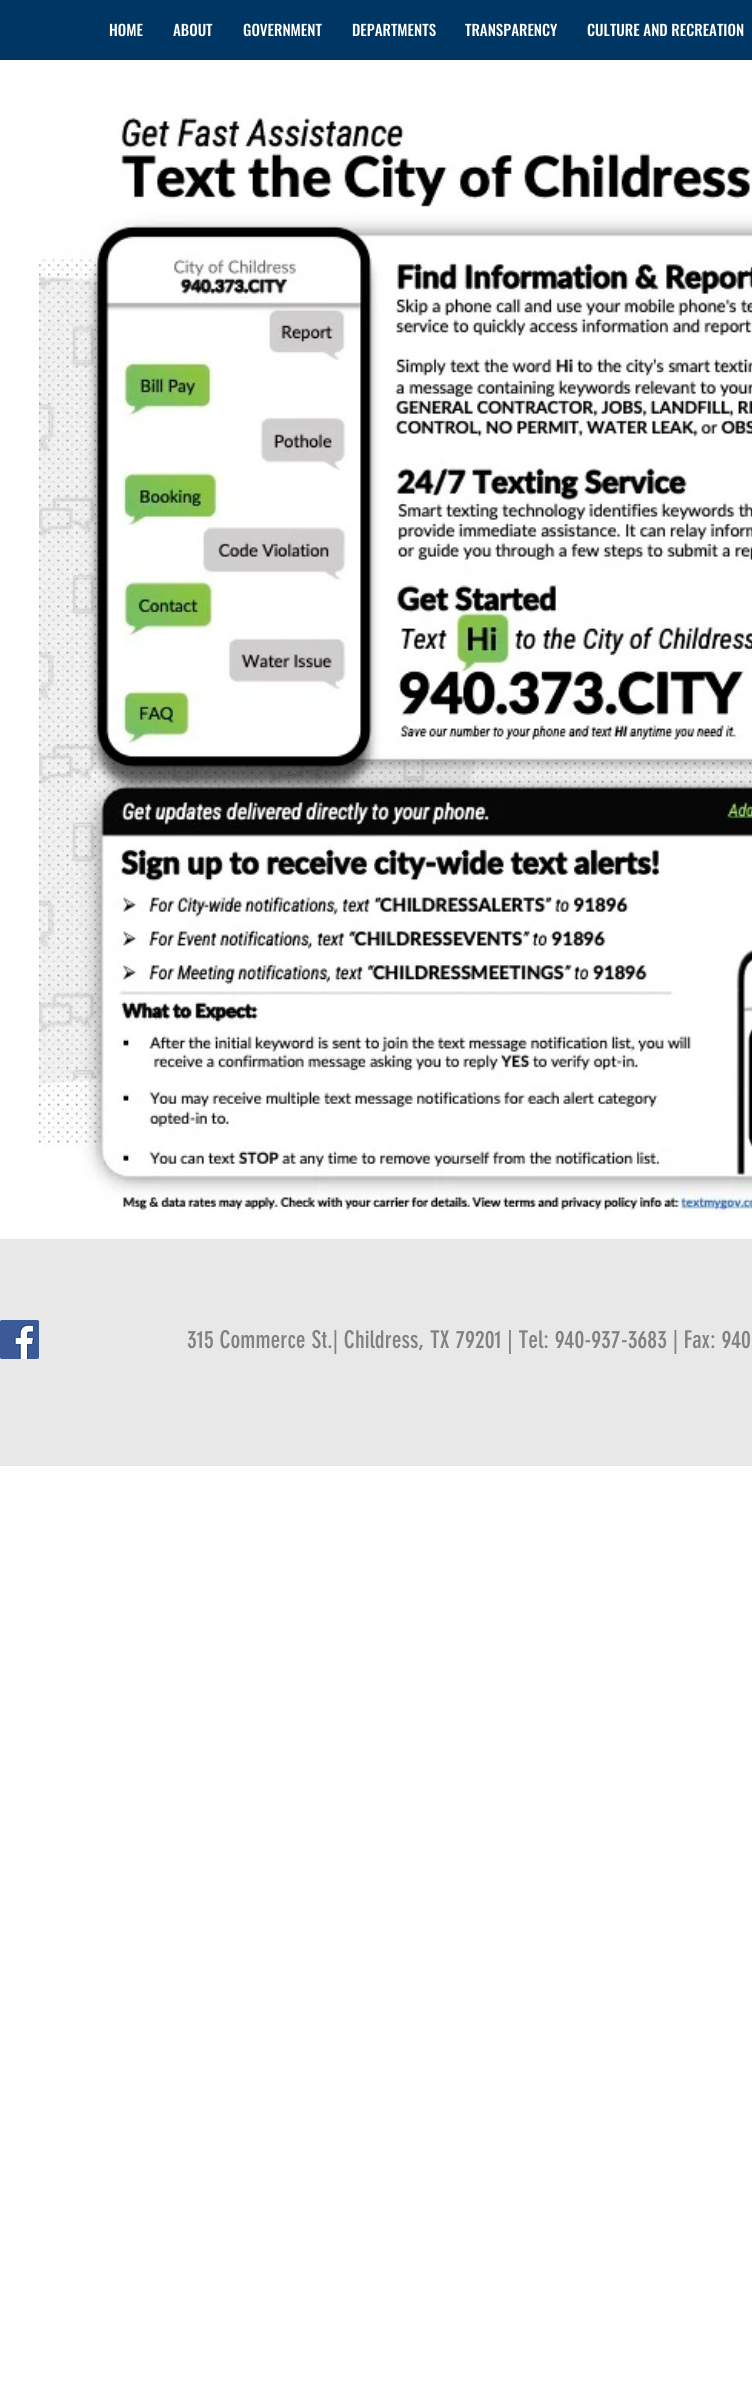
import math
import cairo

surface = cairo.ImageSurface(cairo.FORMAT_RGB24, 752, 2403)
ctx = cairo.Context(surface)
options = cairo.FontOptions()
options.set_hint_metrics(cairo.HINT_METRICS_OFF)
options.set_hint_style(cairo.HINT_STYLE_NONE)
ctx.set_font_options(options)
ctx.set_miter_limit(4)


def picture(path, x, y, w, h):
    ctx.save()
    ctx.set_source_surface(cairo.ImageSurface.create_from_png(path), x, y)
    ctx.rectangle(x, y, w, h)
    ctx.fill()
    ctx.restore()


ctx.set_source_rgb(1, 1, 1)
ctx.paint()
ctx.set_source_rgb(0, 0.212, 0.388)
ctx.rectangle(0, 0, 752, 60)
ctx.fill()
ctx.select_font_face("Oswald Medium")
ctx.set_font_size(15)
ctx.set_source_rgb(1, 1, 1)
ctx.move_to(109, 36)
ctx.show_text("HOME")
ctx.move_to(173, 36)
ctx.show_text("ABOUT")
ctx.move_to(243, 36)
ctx.show_text("GOVERNMENT")
ctx.move_to(352, 36)
ctx.show_text("DEPARTMENTS")
ctx.move_to(465, 36)
ctx.show_text("TRANSPARENCY")
ctx.move_to(587, 36)
ctx.show_text("CULTURE AND RECREATION")
picture("img1.png", 39, 114, 713, 1100)
ctx.set_source_rgb(0.91, 0.91, 0.91)
ctx.rectangle(0, 1239, 752, 227)
ctx.fill()
picture("img2.png", 0, 1320, 39, 39)
ctx.select_font_face("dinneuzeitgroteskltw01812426")
ctx.set_font_size(24)
ctx.set_source_rgb(0.506, 0.506, 0.506)
ctx.move_to(187, 1348)
ctx.show_text("315 Commerce St.| Childress, TX 79201 | Tel: 940-937-3683 | Fax: 940")
surface.write_to_png("page.png")
